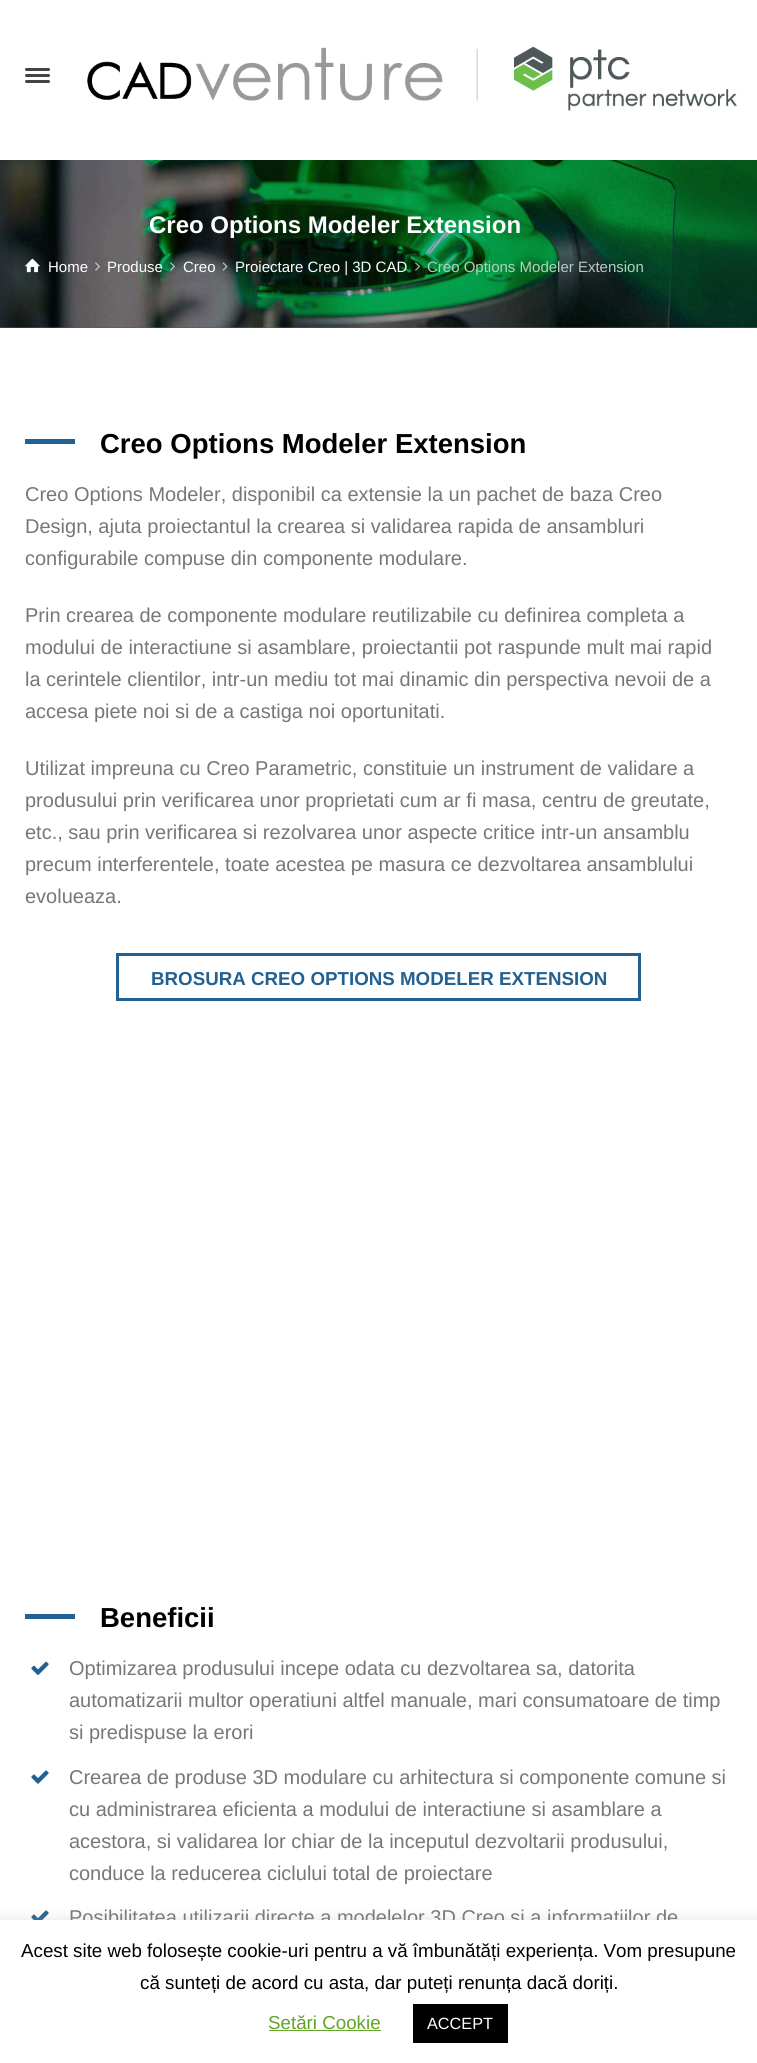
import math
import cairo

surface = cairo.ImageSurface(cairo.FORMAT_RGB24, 757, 2063)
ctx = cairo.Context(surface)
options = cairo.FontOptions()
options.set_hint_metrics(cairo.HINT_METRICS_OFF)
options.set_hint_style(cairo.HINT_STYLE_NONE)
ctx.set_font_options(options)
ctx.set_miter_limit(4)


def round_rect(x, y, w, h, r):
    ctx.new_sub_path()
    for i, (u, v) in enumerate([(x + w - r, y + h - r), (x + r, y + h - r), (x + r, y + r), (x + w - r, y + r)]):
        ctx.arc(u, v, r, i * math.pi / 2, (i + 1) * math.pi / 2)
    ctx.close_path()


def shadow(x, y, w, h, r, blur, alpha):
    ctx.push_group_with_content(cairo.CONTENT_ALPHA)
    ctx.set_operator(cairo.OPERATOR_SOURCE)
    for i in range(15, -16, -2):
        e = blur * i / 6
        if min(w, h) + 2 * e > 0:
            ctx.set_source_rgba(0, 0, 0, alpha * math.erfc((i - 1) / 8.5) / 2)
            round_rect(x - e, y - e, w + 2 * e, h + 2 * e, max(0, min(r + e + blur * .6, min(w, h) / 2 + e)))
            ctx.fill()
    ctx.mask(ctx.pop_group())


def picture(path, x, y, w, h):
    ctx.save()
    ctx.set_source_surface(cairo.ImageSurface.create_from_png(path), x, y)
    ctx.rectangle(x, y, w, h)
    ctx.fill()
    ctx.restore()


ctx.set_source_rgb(1, 1, 1)
ctx.paint()
ctx.set_source_rgb(0.267, 0.267, 0.267)
round_rect(25, 68, 25, 3, 1.5)
ctx.fill()
round_rect(25, 74, 25, 3, 1.5)
ctx.fill()
round_rect(25, 80, 25, 3, 1.5)
ctx.fill()
picture("img1.png", 87, 46, 650, 65)
ctx.set_source_rgb(0.106, 0.435, 0.494)
ctx.rectangle(0, 327, 757, 1)
ctx.fill()
picture("img2.png", 0, 160, 757, 168)
ctx.select_font_face("Liberation Sans", cairo.FONT_SLANT_NORMAL, cairo.FONT_WEIGHT_BOLD)
ctx.set_font_size(24)
ctx.set_source_rgb(1, 1, 1)
ctx.move_to(149, 233)
ctx.show_text("Creo Options Modeler Extension")
picture("img3.png", 25, 258, 15, 15)
ctx.select_font_face("Liberation Sans")
ctx.set_font_size(15)
ctx.move_to(48, 272)
ctx.show_text("Home")
picture("img4.png", 95, 262, 5, 9)
ctx.move_to(107, 272)
ctx.show_text("Produse")
picture("img5.png", 170, 262, 5, 9)
ctx.move_to(183, 272)
ctx.show_text("Creo")
picture("img6.png", 222, 262, 6, 9)
ctx.move_to(235, 272)
ctx.show_text("Proiectare Creo | 3D CAD")
picture("img7.png", 415, 262, 5, 9)
ctx.set_source_rgb(0.714, 0.808, 0.753)
ctx.move_to(427, 272)
ctx.show_text("Creo Options Modeler Extension")
ctx.set_source_rgb(0.137, 0.38, 0.573)
ctx.rectangle(25, 439, 50, 5)
ctx.fill()
ctx.select_font_face("Liberation Sans", cairo.FONT_SLANT_NORMAL, cairo.FONT_WEIGHT_BOLD)
ctx.set_font_size(27.5)
ctx.set_source_rgb(0, 0, 0)
ctx.move_to(100, 453)
ctx.show_text("Creo Options Modeler Extension")
ctx.select_font_face("Liberation Sans")
ctx.set_font_size(20)
ctx.set_source_rgb(0.467, 0.467, 0.467)
ctx.move_to(25, 501)
ctx.show_text("Creo Options Modeler, disponibil ca extensie la un pachet de baza Creo")
ctx.move_to(25, 533)
ctx.show_text("Design, ajuta proiectantul la crearea si validarea rapida de ansambluri")
ctx.move_to(25, 565)
ctx.show_text("configurabile compuse din componente modulare.")
ctx.move_to(25, 622)
ctx.show_text("Prin crearea de componente modulare reutilizabile cu definirea completa a")
ctx.move_to(25, 654)
ctx.show_text("modului de interactiune si asamblare, proiectantii pot raspunde mult mai rapid")
ctx.move_to(25, 686)
ctx.show_text("la cerintele clientilor, intr-un mediu tot mai dinamic din perspectiva nevoii de a")
ctx.move_to(25, 718)
ctx.show_text("accesa piete noi si de a castiga noi oportunitati.")
ctx.move_to(25, 775)
ctx.show_text("Utilizat impreuna cu Creo Parametric, constituie un instrument de validare a")
ctx.move_to(25, 807)
ctx.show_text("produsului prin verificarea unor proprietati cum ar fi masa, centru de greutate,")
ctx.move_to(25, 839)
ctx.show_text("etc., sau prin verificarea si rezolvarea unor aspecte critice intr-un ansamblu")
ctx.move_to(25, 871)
ctx.show_text("precum interferentele, toate acestea pe masura ce dezvoltarea ansamblului")
ctx.move_to(25, 903)
ctx.show_text("evolueaza.")
ctx.rectangle(117.5, 954.5, 522, 45)
ctx.set_source_rgb(0.137, 0.38, 0.573)
ctx.set_line_width(3)
ctx.stroke()
ctx.select_font_face("Liberation Sans", cairo.FONT_SLANT_NORMAL, cairo.FONT_WEIGHT_BOLD)
ctx.set_font_size(18.75)
ctx.move_to(151, 985)
ctx.show_text("BROSURA CREO OPTIONS MODELER EXTENSION")
ctx.rectangle(25, 1614, 50, 5)
ctx.fill()
ctx.set_font_size(27.5)
ctx.set_source_rgb(0, 0, 0)
ctx.move_to(100, 1627)
ctx.show_text("Beneficii")
picture("img8.png", 31, 1661, 18, 14)
ctx.select_font_face("Liberation Sans")
ctx.set_font_size(20)
ctx.set_source_rgb(0.467, 0.467, 0.467)
ctx.move_to(69, 1675)
ctx.show_text("Optimizarea produsului incepe odata cu dezvoltarea sa, datorita")
ctx.move_to(69, 1707)
ctx.show_text("automatizarii multor operatiuni altfel manuale, mari consumatoare de timp")
ctx.move_to(69, 1739)
ctx.show_text("si predispuse la erori")
picture("img9.png", 31, 1770, 18, 14)
ctx.move_to(69, 1784)
ctx.show_text("Crearea de produse 3D modulare cu arhitectura si componente comune si")
ctx.move_to(69, 1816)
ctx.show_text("cu administrarea eficienta a modului de interactiune si asamblare a")
ctx.move_to(69, 1848)
ctx.show_text("acestora, si validarea lor chiar de la inceputul dezvoltarii produsului,")
ctx.move_to(69, 1880)
ctx.show_text("conduce la reducerea ciclului total de proiectare")
picture("img10.png", 31, 1910, 18, 10)
ctx.move_to(69, 1924)
ctx.show_text("Posibilitatea utilizarii directe a modelelor 3D Creo si a informatiilor de")
ctx.set_source_rgb(0.675, 0.671, 0.671)
shadow(0, 1919, 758, 144, 0, 6, 0.3)
ctx.set_source_rgb(1, 1, 1)
ctx.rectangle(0, 1920, 757, 143)
ctx.fill()
ctx.set_font_size(18.75)
ctx.set_source_rgb(0, 0, 0)
ctx.move_to(21, 1957)
ctx.show_text("Acest site web folosește cookie-uri pentru a vă îmbunătăți experiența. Vom presupune")
ctx.move_to(140, 1989)
ctx.show_text("că sunteți de acord cu asta, dar puteți renunța dacă doriți.")
ctx.set_source_rgb(0.384, 0.639, 0.161)
ctx.move_to(268, 2029)
ctx.show_text("Setări Cookie")
ctx.rectangle(269, 2030, 112, 1)
ctx.fill()
ctx.set_source_rgb(0, 0, 0)
ctx.rectangle(413, 2004, 95, 39)
ctx.fill()
ctx.set_font_size(16.25)
ctx.set_source_rgb(1, 1, 1)
ctx.move_to(427, 2029)
ctx.show_text("ACCEPT")
surface.write_to_png("page.png")
